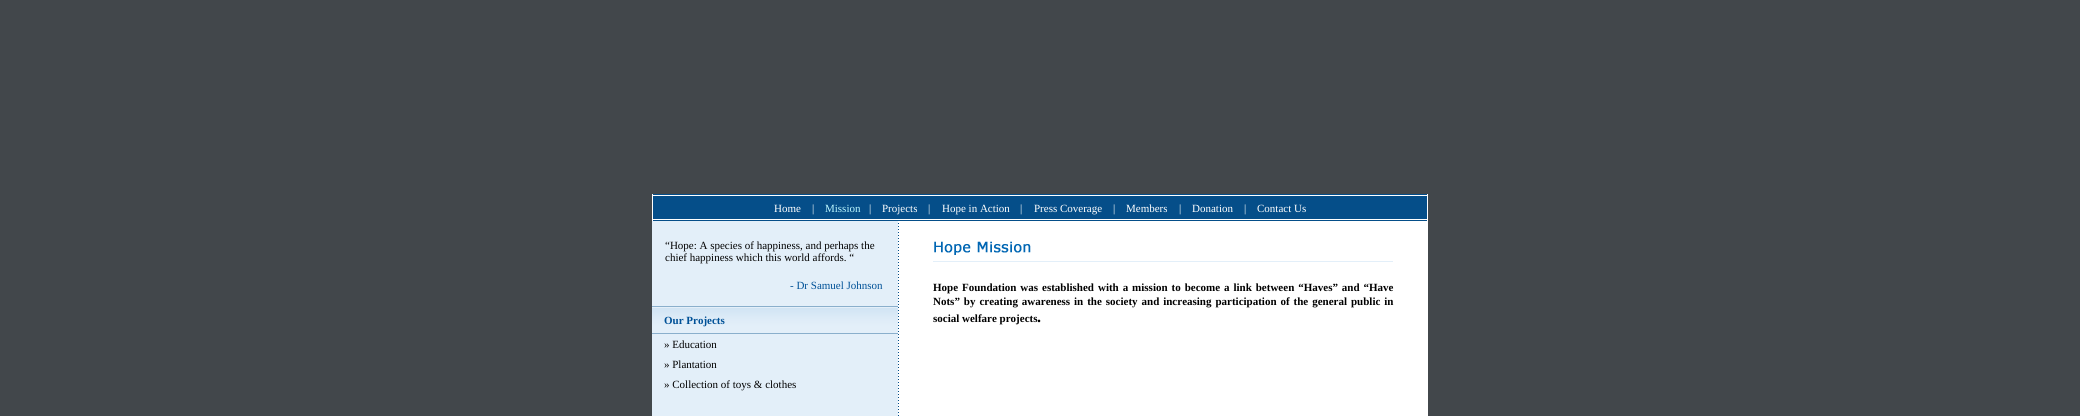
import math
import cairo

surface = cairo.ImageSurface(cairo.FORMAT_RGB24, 2080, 416)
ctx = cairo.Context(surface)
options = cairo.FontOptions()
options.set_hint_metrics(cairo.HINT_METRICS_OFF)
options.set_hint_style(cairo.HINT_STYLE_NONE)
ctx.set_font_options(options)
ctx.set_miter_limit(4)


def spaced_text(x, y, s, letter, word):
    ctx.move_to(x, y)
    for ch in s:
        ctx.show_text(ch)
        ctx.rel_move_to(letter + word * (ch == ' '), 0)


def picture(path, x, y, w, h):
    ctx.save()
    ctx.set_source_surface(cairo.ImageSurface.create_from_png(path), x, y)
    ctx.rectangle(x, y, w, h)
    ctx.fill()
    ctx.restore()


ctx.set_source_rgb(0.259, 0.278, 0.294)
ctx.paint()
ctx.set_source_rgb(1, 1, 1)
ctx.rectangle(652, 194, 776, 27)
ctx.fill()
picture("img1.png", 653, 194, 774, 27)
ctx.select_font_face("Liberation Serif")
ctx.set_font_size(11)
ctx.move_to(774, 212)
ctx.show_text("Home")
ctx.move_to(812, 212)
ctx.show_text("|")
ctx.set_source_rgb(0.733, 0.965, 1)
ctx.move_to(825, 212)
ctx.show_text("Mission")
ctx.set_source_rgb(1, 1, 1)
ctx.move_to(869, 212)
ctx.show_text("|")
ctx.move_to(882, 212)
ctx.show_text("Projects")
ctx.move_to(928, 212)
ctx.show_text("|")
ctx.move_to(942, 212)
ctx.show_text("Hope in Action")
ctx.move_to(1020, 212)
ctx.show_text("|")
ctx.move_to(1034, 212)
ctx.show_text("Press Coverage")
ctx.move_to(1113, 212)
ctx.show_text("|")
ctx.move_to(1126, 212)
ctx.show_text("Members")
ctx.move_to(1179, 212)
ctx.show_text("|")
ctx.move_to(1192, 212)
ctx.show_text("Donation")
ctx.move_to(1244, 212)
ctx.show_text("|")
ctx.move_to(1257, 212)
ctx.show_text("Contact Us")
picture("img2.png", 652, 221, 776, 195)
ctx.set_source_rgb(0, 0, 0)
ctx.move_to(665, 249)
ctx.show_text("“Hope: A species of happiness, and perhaps the")
ctx.move_to(665, 261)
ctx.show_text("chief happiness which this world affords. “")
ctx.set_source_rgb(0, 0.318, 0.592)
ctx.move_to(790, 289)
ctx.show_text("- Dr Samuel Johnson")
picture("img3.png", 652, 306, 246, 28)
ctx.select_font_face("Liberation Serif", cairo.FONT_SLANT_NORMAL, cairo.FONT_WEIGHT_BOLD)
ctx.move_to(664, 324)
ctx.show_text("Our Projects")
ctx.select_font_face("Liberation Serif")
ctx.set_source_rgb(0, 0, 0)
ctx.move_to(664, 348)
ctx.show_text("» Education")
ctx.move_to(664, 368)
ctx.show_text("» Plantation")
ctx.move_to(664, 388)
ctx.show_text("» Collection of toys & clothes")
picture("img4.png", 934, 241, 97, 14)
ctx.set_source_rgb(0.89, 0.937, 0.976)
ctx.rectangle(933, 261, 460, 1)
ctx.fill()
ctx.select_font_face("Liberation Serif", cairo.FONT_SLANT_NORMAL, cairo.FONT_WEIGHT_BOLD)
ctx.set_source_rgb(0, 0, 0)
spaced_text(933, 291, "Hope Foundation was established with a mission to become a link between “Haves” and “Have", 0, 1.2)
spaced_text(933, 305, "Nots” by creating awareness in the society and increasing participation of the general public in", 0, 1.2)
ctx.move_to(933, 322)
ctx.show_text("social welfare projects")
ctx.set_font_size(16)
ctx.move_to(1037, 322)
ctx.show_text(".")
surface.write_to_png("page.png")
